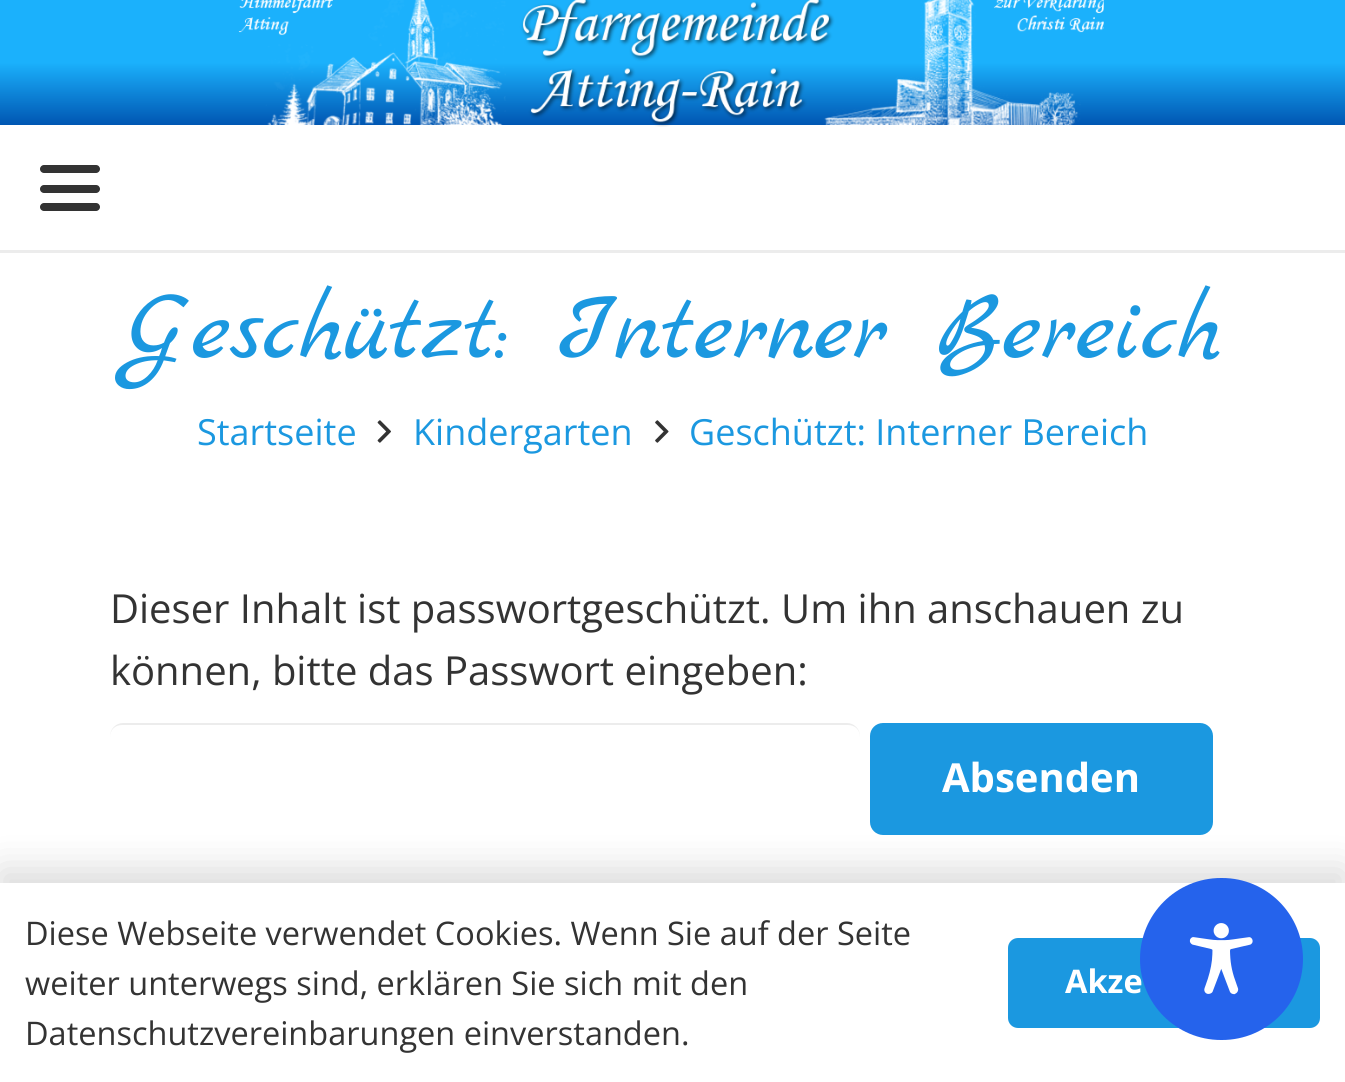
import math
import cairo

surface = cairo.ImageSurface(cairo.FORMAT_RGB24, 1345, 1082)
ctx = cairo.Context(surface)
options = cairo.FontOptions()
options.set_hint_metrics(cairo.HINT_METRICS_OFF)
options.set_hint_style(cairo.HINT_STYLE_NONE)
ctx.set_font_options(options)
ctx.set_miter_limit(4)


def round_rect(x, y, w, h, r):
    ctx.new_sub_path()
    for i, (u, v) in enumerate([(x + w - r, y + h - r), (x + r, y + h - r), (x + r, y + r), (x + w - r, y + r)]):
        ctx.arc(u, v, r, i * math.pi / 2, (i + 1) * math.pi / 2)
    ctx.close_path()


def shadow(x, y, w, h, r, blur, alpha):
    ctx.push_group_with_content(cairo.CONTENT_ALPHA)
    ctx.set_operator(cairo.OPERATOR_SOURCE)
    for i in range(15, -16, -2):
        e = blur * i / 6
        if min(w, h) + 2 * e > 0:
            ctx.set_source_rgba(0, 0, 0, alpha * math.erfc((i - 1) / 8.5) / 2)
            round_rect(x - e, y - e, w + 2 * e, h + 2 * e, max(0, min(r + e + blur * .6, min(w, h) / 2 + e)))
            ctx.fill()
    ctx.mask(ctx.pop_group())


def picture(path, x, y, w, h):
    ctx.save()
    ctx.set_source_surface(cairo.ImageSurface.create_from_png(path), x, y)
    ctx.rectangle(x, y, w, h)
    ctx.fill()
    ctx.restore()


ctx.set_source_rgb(1, 1, 1)
ctx.paint()
gradient = cairo.LinearGradient(673, 0, 673, 125)
gradient.add_color_stop_rgba(0, 0.106, 0.694, 0.988, 1)
gradient.add_color_stop_rgba(0.5, 0.106, 0.694, 0.988, 1)
gradient.add_color_stop_rgba(1, 0, 0.337, 0.698, 1)
ctx.set_source(gradient)
ctx.rectangle(0, 0, 1345, 125)
ctx.fill()
picture("img1.png", 238, 0, 866, 127)
ctx.set_source_rgb(0.922, 0.922, 0.922)
ctx.rectangle(0, 250, 1345, 3)
ctx.fill()
ctx.set_source_rgb(0.2, 0.2, 0.2)
round_rect(40, 185, 60, 8, 4)
ctx.fill()
round_rect(40, 165, 60, 8, 4)
ctx.fill()
round_rect(40, 203, 60, 8, 4)
ctx.fill()
ctx.select_font_face("Marck Script")
ctx.set_font_size(100)
ctx.set_source_rgb(0.106, 0.596, 0.878)
ctx.move_to(124, 358)
ctx.show_text("Geschützt: Interner Bereich")
ctx.select_font_face("Open Sans")
ctx.set_font_size(36)
ctx.move_to(197, 445)
ctx.show_text("Startseite")
picture("img2.png", 377, 420, 14, 23)
ctx.move_to(413, 445)
ctx.show_text("Kindergarten")
picture("img3.png", 655, 420, 14, 23)
ctx.move_to(689, 445)
ctx.show_text("Geschützt: Interner Bereich")
ctx.set_font_size(40)
ctx.set_source_rgb(0.2, 0.2, 0.2)
ctx.move_to(110, 623)
ctx.show_text("Dieser Inhalt ist passwortgeschützt. Um ihn anschauen zu")
ctx.move_to(110, 685)
ctx.show_text("können, bitte das Passwort eingeben:")
ctx.set_source_rgb(0.922, 0.922, 0.922)
ctx.new_path()
ctx.move_to(122, 725)
ctx.line_to(848, 725)
ctx.curve_to(855, 725, 860, 730, 860, 737)
ctx.line_to(860, 736)
ctx.curve_to(860, 729, 854, 723, 847, 723)
ctx.line_to(123, 723)
ctx.curve_to(116, 723, 110, 729, 110, 736)
ctx.line_to(110, 737)
ctx.curve_to(110, 730, 115, 725, 122, 725)
ctx.close_path()
ctx.fill()
ctx.set_source_rgb(0.106, 0.596, 0.878)
round_rect(870, 723, 343, 112, 13)
ctx.fill()
ctx.select_font_face("Open Sans", cairo.FONT_SLANT_NORMAL, cairo.FONT_WEIGHT_BOLD)
ctx.set_source_rgb(1, 1, 1)
ctx.move_to(942, 792)
ctx.show_text("Absenden")
ctx.set_source_rgb(0, 0, 0)
shadow(0, 870, 1345, 200, 0, 19, 0.15)
ctx.set_source_rgb(1, 1, 1)
ctx.rectangle(0, 883, 1345, 199)
ctx.fill()
ctx.select_font_face("Open Sans")
ctx.set_font_size(32.5)
ctx.set_source_rgb(0.2, 0.2, 0.2)
ctx.move_to(25, 945)
ctx.show_text("Diese Webseite verwendet Cookies. Wenn Sie auf der Seite")
ctx.move_to(25, 995)
ctx.show_text("weiter unterwegs sind, erklären Sie sich mit den")
ctx.move_to(25, 1045)
ctx.show_text("Datenschutzvereinbarungen einverstanden.")
ctx.set_source_rgb(0.106, 0.596, 0.878)
round_rect(1008, 938, 312, 90, 10)
ctx.fill()
ctx.select_font_face("Open Sans", cairo.FONT_SLANT_NORMAL, cairo.FONT_WEIGHT_BOLD)
ctx.set_source_rgb(1, 1, 1)
ctx.move_to(1065, 993)
ctx.show_text("Akze")
ctx.set_source_rgb(0.145, 0.388, 0.922)
round_rect(1140, 878, 163, 162, 81)
ctx.fill()
picture("img4.png", 1189, 923, 64, 72)
surface.write_to_png("page.png")
